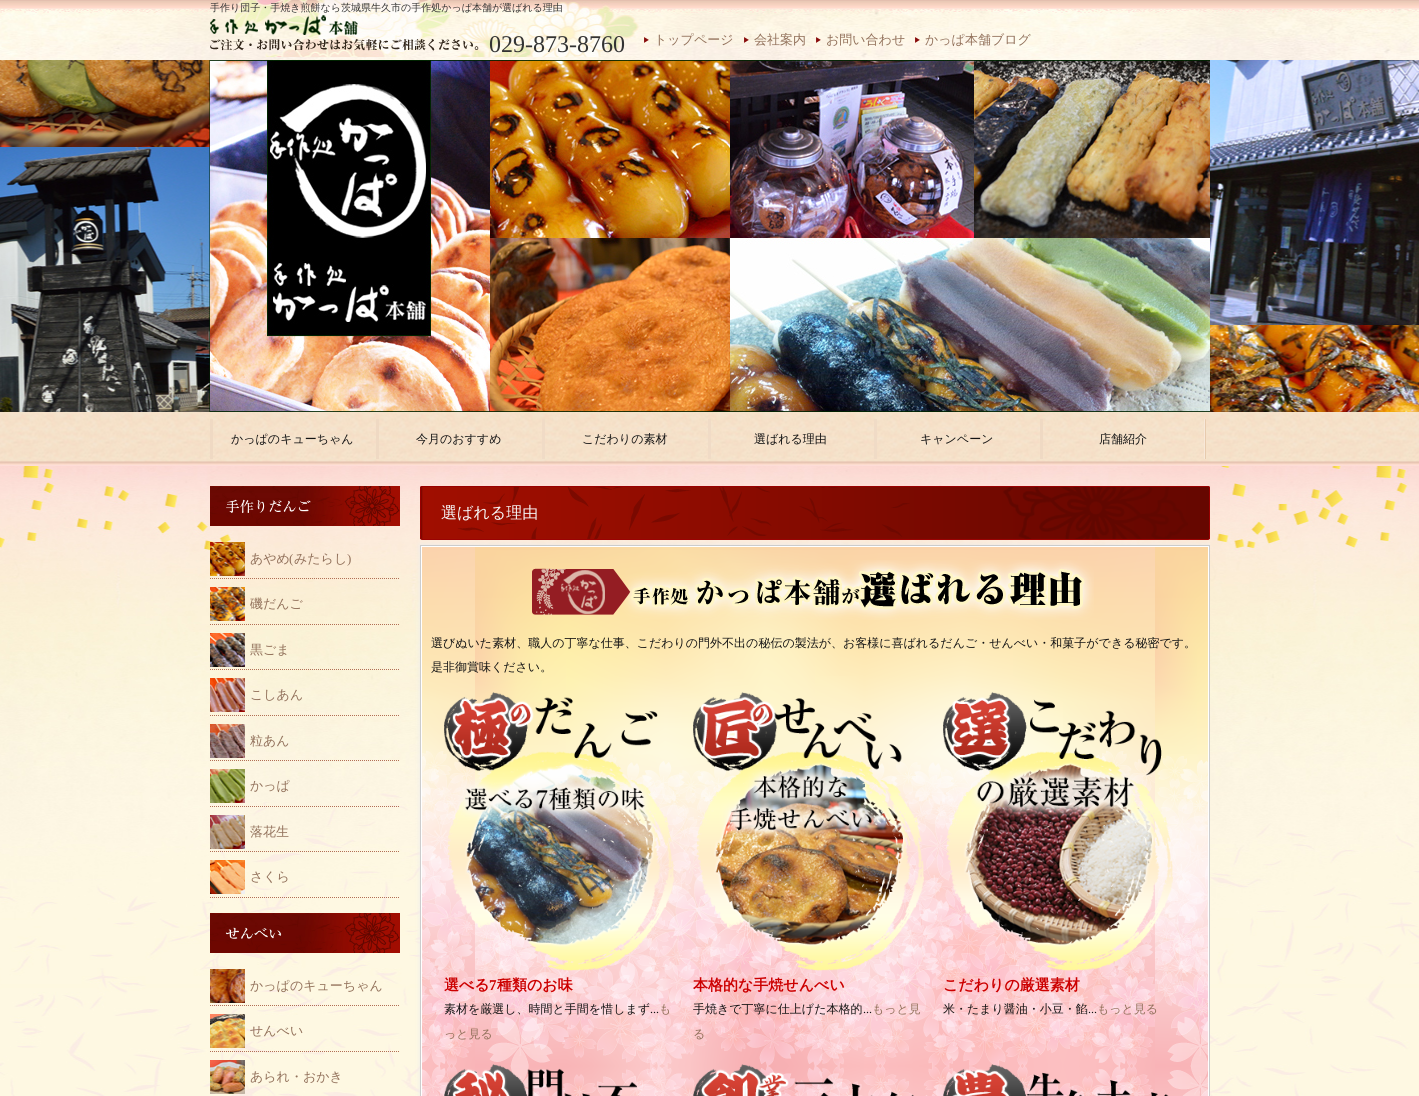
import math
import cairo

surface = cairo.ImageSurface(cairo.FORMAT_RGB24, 1419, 1096)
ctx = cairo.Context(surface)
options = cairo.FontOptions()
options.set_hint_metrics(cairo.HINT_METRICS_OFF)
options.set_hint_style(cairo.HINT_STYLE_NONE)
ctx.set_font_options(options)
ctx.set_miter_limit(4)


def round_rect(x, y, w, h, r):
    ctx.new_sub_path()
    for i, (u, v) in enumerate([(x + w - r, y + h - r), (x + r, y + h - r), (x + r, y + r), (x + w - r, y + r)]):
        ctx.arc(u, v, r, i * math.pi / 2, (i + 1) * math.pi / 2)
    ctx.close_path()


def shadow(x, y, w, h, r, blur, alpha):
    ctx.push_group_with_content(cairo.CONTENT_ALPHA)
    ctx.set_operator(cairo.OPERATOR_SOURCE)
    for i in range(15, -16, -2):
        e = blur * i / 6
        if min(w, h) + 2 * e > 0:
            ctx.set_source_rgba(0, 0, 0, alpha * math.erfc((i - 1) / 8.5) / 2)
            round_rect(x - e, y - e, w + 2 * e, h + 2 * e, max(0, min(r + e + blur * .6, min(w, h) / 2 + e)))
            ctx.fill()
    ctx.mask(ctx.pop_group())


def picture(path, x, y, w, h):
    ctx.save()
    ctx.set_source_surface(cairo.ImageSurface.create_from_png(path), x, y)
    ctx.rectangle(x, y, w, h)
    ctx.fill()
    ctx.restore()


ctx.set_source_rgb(1, 1, 1)
ctx.paint()
picture("img1.png", 0, 0, 1419, 1096)
ctx.select_font_face("WenQuanYi Zen Hei Medium")
ctx.set_font_size(10)
ctx.set_source_rgb(0.2, 0.2, 0.2)
ctx.move_to(210, 11)
ctx.show_text("手作り団子・手焼き煎餅なら茨城県牛久市の手作処かっぱ本舗が選ばれる理由")
picture("img2.png", 210, 15, 269, 36)
ctx.select_font_face("Liberation Serif")
ctx.set_font_size(24)
ctx.move_to(489, 52)
ctx.show_text("029-873-8760")
picture("img3.png", 644, 37, 5, 6)
ctx.select_font_face("WenQuanYi Zen Hei Medium")
ctx.set_font_size(13)
ctx.set_source_rgb(0.573, 0.443, 0.357)
ctx.move_to(654, 44)
ctx.show_text("トップページ")
picture("img4.png", 744, 37, 5, 6)
ctx.move_to(754, 44)
ctx.show_text("会社案内")
picture("img5.png", 816, 37, 5, 6)
ctx.move_to(826, 44)
ctx.show_text("お問い合わせ")
picture("img6.png", 915, 37, 5, 6)
ctx.move_to(925, 44)
ctx.show_text("かっぱ本舗ブログ")
picture("img7.png", 0, 60, 1419, 352)
picture("img8.png", 210, 60, 1000, 352)
picture("img9.png", 0, 412, 1419, 54)
picture("img10.png", 1204, 419, 2, 40)
ctx.set_source_rgba(0.937, 0.851, 0.761, 0.94)
ctx.rectangle(210, 419, 3, 40)
ctx.fill()
ctx.set_font_size(12)
ctx.set_source_rgb(0.082, 0.082, 0.082)
ctx.move_to(231, 443)
ctx.show_text("かっぱのキューちゃん")
ctx.set_source_rgba(0.937, 0.851, 0.761, 0.94)
ctx.rectangle(376, 419, 3, 40)
ctx.fill()
ctx.set_source_rgb(0.082, 0.082, 0.082)
ctx.move_to(416, 443)
ctx.show_text("今月のおすすめ")
ctx.set_source_rgba(0.941, 0.859, 0.776, 0.94)
ctx.rectangle(542, 419, 3, 40)
ctx.fill()
ctx.set_source_rgb(0.082, 0.082, 0.082)
ctx.move_to(582, 443)
ctx.show_text("こだわりの素材")
ctx.set_source_rgba(0.941, 0.859, 0.776, 0.94)
ctx.rectangle(708, 419, 3, 40)
ctx.fill()
ctx.set_source_rgb(0.082, 0.082, 0.082)
ctx.move_to(754, 443)
ctx.show_text("選ばれる理由")
ctx.set_source_rgba(0.941, 0.859, 0.776, 0.94)
ctx.rectangle(874, 419, 3, 40)
ctx.fill()
ctx.set_source_rgb(0.082, 0.082, 0.082)
ctx.move_to(920, 443)
ctx.show_text("キャンペーン")
ctx.set_source_rgba(0.937, 0.851, 0.761, 0.94)
ctx.rectangle(1040, 419, 3, 40)
ctx.fill()
ctx.set_source_rgb(0.082, 0.082, 0.082)
ctx.move_to(1099, 443)
ctx.show_text("店舗紹介")
picture("img11.png", 210, 486, 190, 40)
picture("img12.png", 210, 542, 35, 34)
ctx.new_path()
ctx.move_to(210, 578.5)
ctx.line_to(400, 578.5)
ctx.set_source_rgb(0.698, 0.435, 0.333)
ctx.set_line_width(1)
ctx.set_dash([1, 1])
ctx.stroke()
ctx.set_font_size(13)
ctx.set_source_rgb(0.573, 0.443, 0.357)
ctx.move_to(250, 563)
ctx.show_text("あやめ")
ctx.select_font_face("Liberation Serif")
ctx.move_to(289, 563)
ctx.show_text("(")
ctx.select_font_face("WenQuanYi Zen Hei Medium")
ctx.move_to(294, 563)
ctx.show_text("みたらし")
ctx.select_font_face("Liberation Serif")
ctx.move_to(347, 563)
ctx.show_text(")")
picture("img13.png", 210, 587, 35, 34)
ctx.new_path()
ctx.move_to(210, 624.5)
ctx.line_to(400, 624.5)
ctx.set_source_rgb(0.698, 0.435, 0.333)
ctx.stroke()
ctx.select_font_face("WenQuanYi Zen Hei Medium")
ctx.set_source_rgb(0.573, 0.443, 0.357)
ctx.move_to(250, 608)
ctx.show_text("磯だんご")
picture("img14.png", 210, 633, 35, 34)
ctx.new_path()
ctx.move_to(210, 669.5)
ctx.line_to(400, 669.5)
ctx.set_source_rgb(0.698, 0.435, 0.333)
ctx.stroke()
ctx.set_source_rgb(0.573, 0.443, 0.357)
ctx.move_to(250, 654)
ctx.show_text("黒ごま")
picture("img15.png", 210, 678, 35, 34)
ctx.new_path()
ctx.move_to(210, 715.5)
ctx.line_to(400, 715.5)
ctx.set_source_rgb(0.698, 0.435, 0.333)
ctx.stroke()
ctx.set_source_rgb(0.573, 0.443, 0.357)
ctx.move_to(250, 699)
ctx.show_text("こしあん")
picture("img16.png", 210, 724, 35, 34)
ctx.new_path()
ctx.move_to(210, 760.5)
ctx.line_to(400, 760.5)
ctx.set_source_rgb(0.698, 0.435, 0.333)
ctx.stroke()
ctx.set_source_rgb(0.573, 0.443, 0.357)
ctx.move_to(250, 745)
ctx.show_text("粒あん")
picture("img17.png", 210, 769, 35, 34)
ctx.new_path()
ctx.move_to(210, 806.5)
ctx.line_to(400, 806.5)
ctx.set_source_rgb(0.698, 0.435, 0.333)
ctx.stroke()
ctx.set_source_rgb(0.573, 0.443, 0.357)
ctx.move_to(250, 790)
ctx.show_text("かっぱ")
picture("img18.png", 210, 815, 35, 34)
ctx.new_path()
ctx.move_to(210, 851.5)
ctx.line_to(400, 851.5)
ctx.set_source_rgb(0.698, 0.435, 0.333)
ctx.stroke()
ctx.set_source_rgb(0.573, 0.443, 0.357)
ctx.move_to(250, 836)
ctx.show_text("落花生")
picture("img19.png", 210, 860, 35, 34)
ctx.new_path()
ctx.move_to(210, 897.5)
ctx.line_to(400, 897.5)
ctx.set_source_rgb(0.698, 0.435, 0.333)
ctx.stroke()
ctx.set_source_rgb(0.573, 0.443, 0.357)
ctx.move_to(250, 881)
ctx.show_text("さくら")
picture("img20.png", 210, 913, 190, 40)
picture("img21.png", 210, 969, 35, 34)
ctx.new_path()
ctx.move_to(210, 1005.5)
ctx.line_to(400, 1005.5)
ctx.set_source_rgb(0.698, 0.435, 0.333)
ctx.stroke()
ctx.set_source_rgb(0.573, 0.443, 0.357)
ctx.move_to(250, 990)
ctx.show_text("かっぱのキューちゃん")
picture("img22.png", 210, 1014, 35, 34)
ctx.new_path()
ctx.move_to(210, 1051.5)
ctx.line_to(400, 1051.5)
ctx.set_source_rgb(0.698, 0.435, 0.333)
ctx.stroke()
ctx.set_source_rgb(0.573, 0.443, 0.357)
ctx.move_to(250, 1035)
ctx.show_text("せんべい")
picture("img23.png", 210, 1060, 35, 34)
ctx.move_to(250, 1081)
ctx.show_text("あられ・おかき")
picture("img24.png", 420, 486, 790, 53)
round_rect(420.5, 486.5, 789, 53, 1.5)
ctx.set_source_rgb(0.6, 0, 0)
ctx.set_dash([])
ctx.stroke()
ctx.set_font_size(16)
ctx.set_source_rgb(0.961, 0.961, 0.961)
ctx.move_to(441, 518)
ctx.show_text("選ばれる理由")
ctx.save()
ctx.rectangle(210, 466, 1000, 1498)
ctx.clip()
ctx.set_source_rgb(0.929, 0.929, 0.929)
shadow(420, 545, 790, 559, 0, 2.5, 1)
ctx.restore()
picture("img25.png", 422, 547, 786, 549)
ctx.rectangle(421.5, 546.5, 787, 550)
ctx.set_source_rgb(1, 1, 1)
ctx.stroke()
ctx.rectangle(420.5, 545.5, 789, 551)
ctx.set_source_rgb(0.8, 0.8, 0.8)
ctx.stroke()
picture("img26.png", 532, 560, 562, 60)
ctx.set_font_size(12)
ctx.set_source_rgb(0.082, 0.082, 0.082)
ctx.move_to(431, 647)
ctx.show_text("選びぬいた素材、職人の丁寧な仕事、こだわりの門外不出の秘伝の製法が、お客様に喜ばれるだんご・せんべい・和菓子ができる秘密です。")
ctx.move_to(431, 671)
ctx.show_text("是非御賞味ください。")
picture("img27.png", 444, 692, 230, 279)
ctx.select_font_face("WenQuanYi Zen Hei", cairo.FONT_SLANT_NORMAL, cairo.FONT_WEIGHT_BOLD)
ctx.set_font_size(15)
ctx.set_source_rgb(0.8, 0, 0)
ctx.move_to(444, 990)
ctx.show_text("選べる")
ctx.select_font_face("Liberation Serif", cairo.FONT_SLANT_NORMAL, cairo.FONT_WEIGHT_BOLD)
ctx.move_to(489, 990)
ctx.show_text("7")
ctx.select_font_face("WenQuanYi Zen Hei", cairo.FONT_SLANT_NORMAL, cairo.FONT_WEIGHT_BOLD)
ctx.move_to(497, 990)
ctx.show_text("種類のお味")
ctx.select_font_face("WenQuanYi Zen Hei Medium")
ctx.set_font_size(12)
ctx.set_source_rgb(0.082, 0.082, 0.082)
ctx.move_to(444, 1013)
ctx.show_text("素材を厳選し、時間と手間を惜しまず")
ctx.select_font_face("Liberation Serif")
ctx.move_to(650, 1013)
ctx.show_text("...")
ctx.select_font_face("WenQuanYi Zen Hei Medium")
ctx.set_source_rgb(0.573, 0.443, 0.357)
ctx.move_to(659, 1013)
ctx.show_text("も")
ctx.move_to(444, 1038)
ctx.show_text("っと見る")
picture("img28.png", 693, 692, 231, 279)
ctx.select_font_face("WenQuanYi Zen Hei", cairo.FONT_SLANT_NORMAL, cairo.FONT_WEIGHT_BOLD)
ctx.set_font_size(15)
ctx.set_source_rgb(0.8, 0, 0)
ctx.move_to(693, 990)
ctx.show_text("本格的な手焼せんべい")
ctx.select_font_face("WenQuanYi Zen Hei Medium")
ctx.set_font_size(12)
ctx.set_source_rgb(0.082, 0.082, 0.082)
ctx.move_to(693, 1013)
ctx.show_text("手焼きで丁寧に仕上げた本格的")
ctx.select_font_face("Liberation Serif")
ctx.move_to(863, 1013)
ctx.show_text("...")
ctx.select_font_face("WenQuanYi Zen Hei Medium")
ctx.set_source_rgb(0.573, 0.443, 0.357)
ctx.move_to(872, 1013)
ctx.show_text("もっと見")
ctx.move_to(693, 1038)
ctx.show_text("る")
picture("img29.png", 943, 692, 230, 279)
ctx.select_font_face("WenQuanYi Zen Hei", cairo.FONT_SLANT_NORMAL, cairo.FONT_WEIGHT_BOLD)
ctx.set_font_size(15)
ctx.set_source_rgb(0.8, 0, 0)
ctx.move_to(943, 990)
ctx.show_text("こだわりの厳選素材")
ctx.select_font_face("WenQuanYi Zen Hei Medium")
ctx.set_font_size(12)
ctx.set_source_rgb(0.082, 0.082, 0.082)
ctx.move_to(943, 1013)
ctx.show_text("米・たまり醤油・小豆・餡")
ctx.select_font_face("Liberation Serif")
ctx.move_to(1088, 1013)
ctx.show_text("...")
ctx.select_font_face("WenQuanYi Zen Hei Medium")
ctx.set_source_rgb(0.573, 0.443, 0.357)
ctx.move_to(1097, 1013)
ctx.show_text("もっと見る")
picture("img30.png", 444, 1064, 193, 32)
picture("img31.png", 693, 1064, 221, 32)
picture("img32.png", 943, 1064, 226, 32)
surface.write_to_png("page.png")
